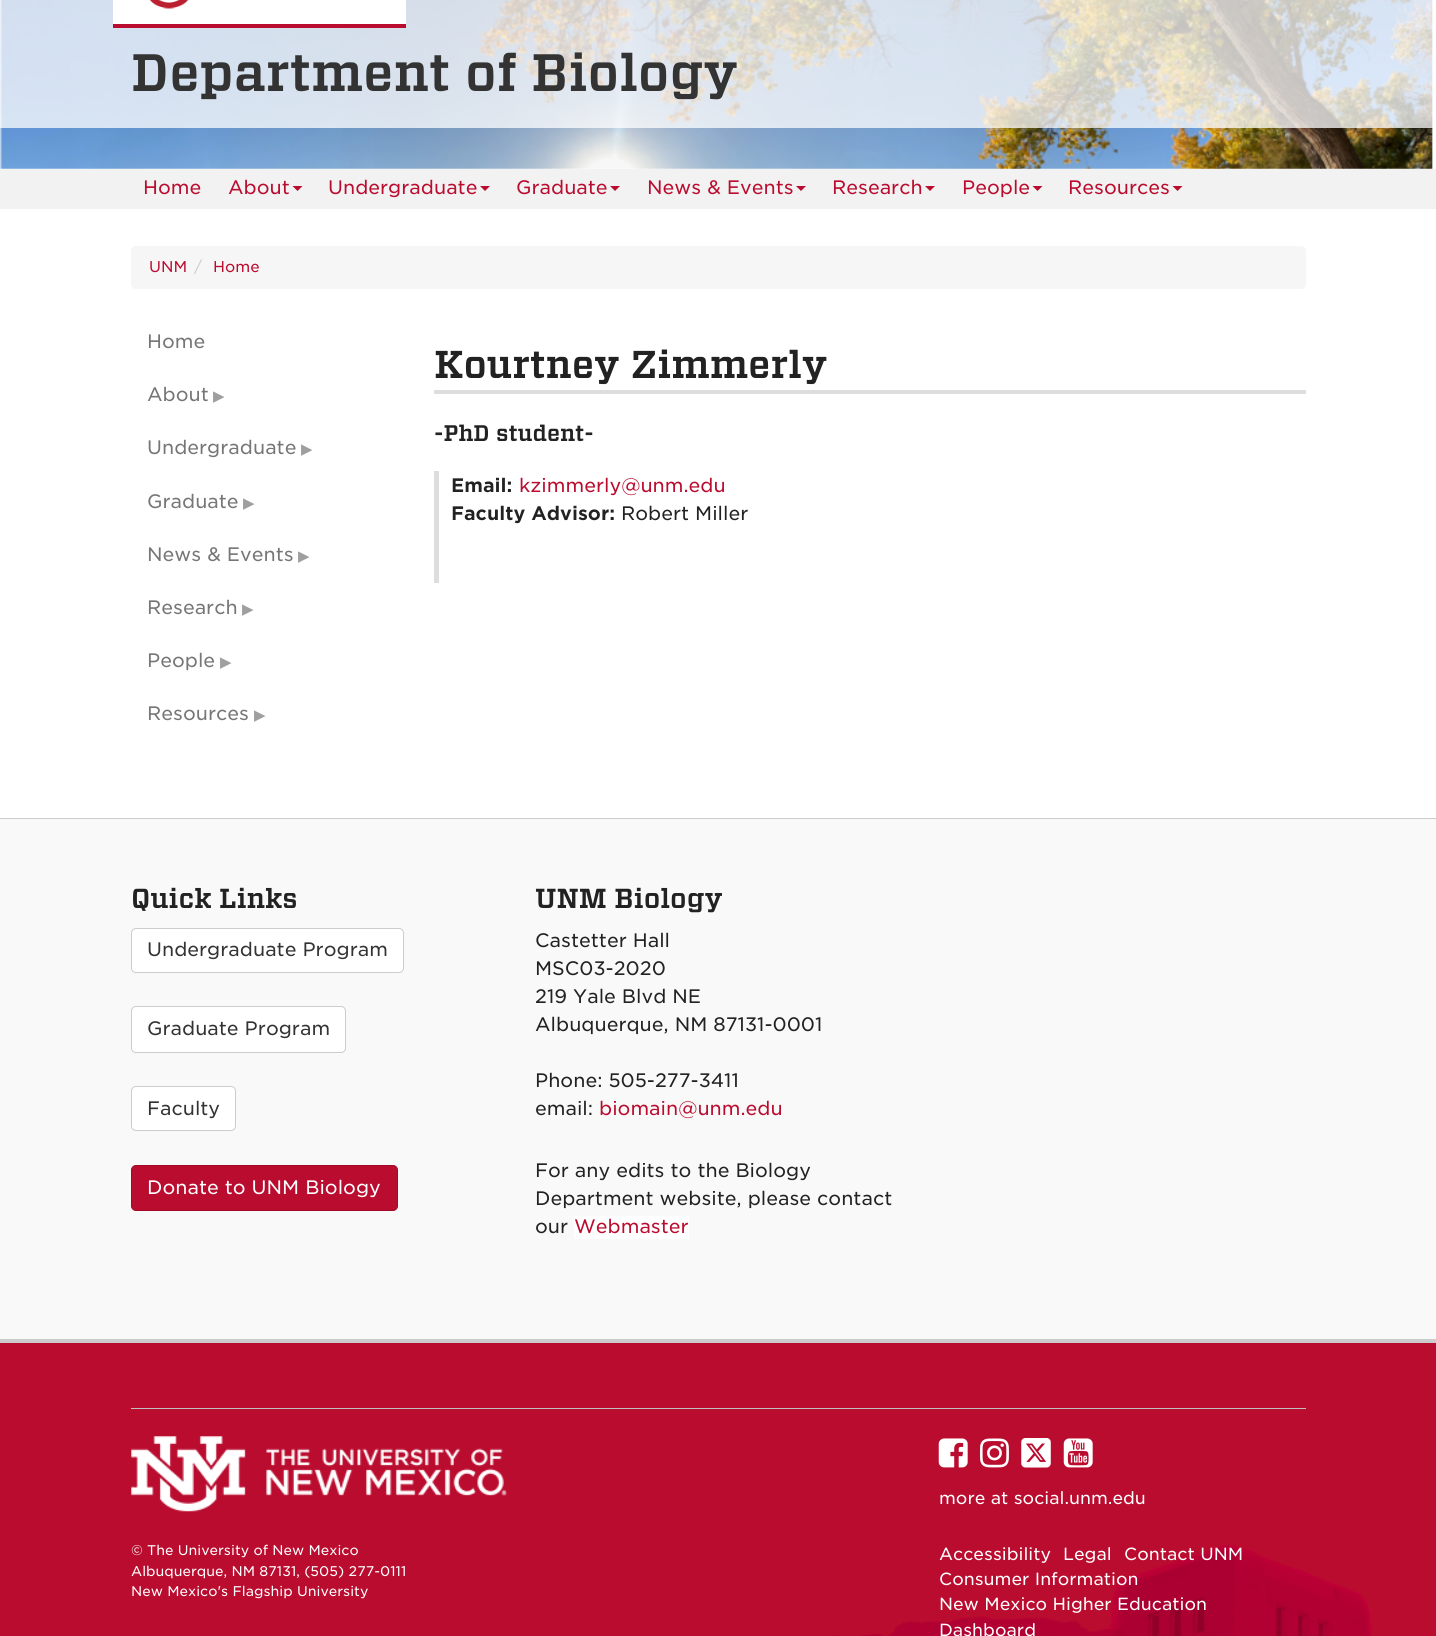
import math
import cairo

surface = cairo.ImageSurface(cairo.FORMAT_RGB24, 1436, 1636)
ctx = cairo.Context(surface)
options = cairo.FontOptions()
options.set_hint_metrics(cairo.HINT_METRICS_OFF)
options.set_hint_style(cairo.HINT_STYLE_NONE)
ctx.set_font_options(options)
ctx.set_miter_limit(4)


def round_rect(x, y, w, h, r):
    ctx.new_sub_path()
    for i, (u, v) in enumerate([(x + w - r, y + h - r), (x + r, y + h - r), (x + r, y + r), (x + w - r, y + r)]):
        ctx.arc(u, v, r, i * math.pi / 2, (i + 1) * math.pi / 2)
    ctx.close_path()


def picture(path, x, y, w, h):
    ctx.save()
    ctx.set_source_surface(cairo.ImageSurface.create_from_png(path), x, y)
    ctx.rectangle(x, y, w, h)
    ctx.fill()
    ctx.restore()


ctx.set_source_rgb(1, 1, 1)
ctx.paint()
picture("img1.png", 0, 0, 1433, 169)
ctx.set_source_rgba(1, 1, 1, 0.75)
ctx.rectangle(0, 0, 1433, 128)
ctx.fill()
ctx.set_source_rgb(1, 1, 1)
ctx.rectangle(113, 0, 293, 24)
ctx.fill()
picture("img2.png", 149, 0, 40, 9)
ctx.set_source_rgb(0.729, 0.047, 0.184)
ctx.rectangle(113, 24, 293, 4)
ctx.fill()
ctx.select_font_face("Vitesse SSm", cairo.FONT_SLANT_NORMAL, cairo.FONT_WEIGHT_BOLD)
ctx.set_font_size(52.5)
ctx.set_source_rgb(0.2, 0.2, 0.2)
ctx.move_to(131, 91)
ctx.show_text("Department of Biology")
ctx.set_source_rgb(0.949, 0.949, 0.949)
ctx.rectangle(0, 169, 1436, 40)
ctx.fill()
ctx.select_font_face("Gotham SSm")
ctx.set_font_size(18.75)
ctx.set_source_rgb(0.729, 0.047, 0.184)
ctx.move_to(143, 194)
ctx.show_text("Home")
ctx.move_to(228, 194)
ctx.show_text("About")
ctx.new_path()
ctx.move_to(292.5, 186)
ctx.line_to(302.5, 186)
ctx.line_to(297.5, 191)
ctx.close_path()
ctx.fill()
ctx.move_to(328, 194)
ctx.show_text("Undergraduate")
ctx.new_path()
ctx.move_to(480, 186)
ctx.line_to(490, 186)
ctx.line_to(485, 191)
ctx.close_path()
ctx.fill()
ctx.move_to(516, 194)
ctx.show_text("Graduate")
ctx.new_path()
ctx.move_to(610, 186)
ctx.line_to(620, 186)
ctx.line_to(615, 191)
ctx.close_path()
ctx.fill()
ctx.move_to(647, 194)
ctx.show_text("News & Events")
ctx.new_path()
ctx.move_to(796, 186)
ctx.line_to(806, 186)
ctx.line_to(801, 191)
ctx.close_path()
ctx.fill()
ctx.move_to(832, 194)
ctx.show_text("Research")
ctx.new_path()
ctx.move_to(925, 186)
ctx.line_to(935, 186)
ctx.line_to(930, 191)
ctx.close_path()
ctx.fill()
ctx.move_to(962, 194)
ctx.show_text("People")
ctx.new_path()
ctx.move_to(1032.5, 186)
ctx.line_to(1042.5, 186)
ctx.line_to(1037.5, 191)
ctx.close_path()
ctx.fill()
ctx.move_to(1068, 194)
ctx.show_text("Resources")
ctx.new_path()
ctx.move_to(1172.5, 186)
ctx.line_to(1182.5, 186)
ctx.line_to(1177.5, 191)
ctx.close_path()
ctx.fill()
ctx.set_source_rgb(0.961, 0.961, 0.961)
round_rect(131, 246, 1175, 43, 5)
ctx.fill()
ctx.set_font_size(15)
ctx.set_source_rgb(0.729, 0.047, 0.184)
ctx.move_to(149, 272)
ctx.show_text("UNM")
ctx.set_source_rgb(0.8, 0.8, 0.8)
ctx.move_to(194, 272)
ctx.show_text("/")
ctx.set_source_rgb(0.729, 0.047, 0.184)
ctx.move_to(213, 272)
ctx.show_text("Home")
ctx.set_font_size(18.75)
ctx.set_source_rgb(0.463, 0.463, 0.463)
ctx.move_to(147, 348)
ctx.show_text("Home")
ctx.move_to(147, 401)
ctx.show_text("About")
ctx.select_font_face("DejaVu Sans")
ctx.set_font_size(15)
ctx.set_source_rgb(0.624, 0.624, 0.624)
ctx.move_to(213, 401)
ctx.show_text("▶")
ctx.select_font_face("Gotham SSm")
ctx.set_font_size(18.75)
ctx.set_source_rgb(0.463, 0.463, 0.463)
ctx.move_to(147, 454)
ctx.show_text("Undergraduate")
ctx.select_font_face("DejaVu Sans")
ctx.set_font_size(15)
ctx.set_source_rgb(0.624, 0.624, 0.624)
ctx.move_to(301, 454)
ctx.show_text("▶")
ctx.select_font_face("Gotham SSm")
ctx.set_font_size(18.75)
ctx.set_source_rgb(0.463, 0.463, 0.463)
ctx.move_to(147, 508)
ctx.show_text("Graduate")
ctx.select_font_face("DejaVu Sans")
ctx.set_font_size(15)
ctx.set_source_rgb(0.624, 0.624, 0.624)
ctx.move_to(243, 508)
ctx.show_text("▶")
ctx.select_font_face("Gotham SSm")
ctx.set_font_size(18.75)
ctx.set_source_rgb(0.463, 0.463, 0.463)
ctx.move_to(147, 561)
ctx.show_text("News & Events")
ctx.select_font_face("DejaVu Sans")
ctx.set_font_size(15)
ctx.set_source_rgb(0.624, 0.624, 0.624)
ctx.move_to(298, 561)
ctx.show_text("▶")
ctx.select_font_face("Gotham SSm")
ctx.set_font_size(18.75)
ctx.set_source_rgb(0.463, 0.463, 0.463)
ctx.move_to(147, 614)
ctx.show_text("Research")
ctx.select_font_face("DejaVu Sans")
ctx.set_font_size(15)
ctx.set_source_rgb(0.624, 0.624, 0.624)
ctx.move_to(242, 614)
ctx.show_text("▶")
ctx.select_font_face("Gotham SSm")
ctx.set_font_size(18.75)
ctx.set_source_rgb(0.463, 0.463, 0.463)
ctx.move_to(147, 667)
ctx.show_text("People")
ctx.select_font_face("DejaVu Sans")
ctx.set_font_size(15)
ctx.set_source_rgb(0.624, 0.624, 0.624)
ctx.move_to(220, 667)
ctx.show_text("▶")
ctx.select_font_face("Gotham SSm")
ctx.set_font_size(18.75)
ctx.set_source_rgb(0.463, 0.463, 0.463)
ctx.move_to(147, 720)
ctx.show_text("Resources")
ctx.select_font_face("DejaVu Sans")
ctx.set_font_size(15)
ctx.set_source_rgb(0.624, 0.624, 0.624)
ctx.move_to(254, 720)
ctx.show_text("▶")
ctx.set_source_rgb(0.867, 0.867, 0.867)
ctx.rectangle(434, 390, 872, 4)
ctx.fill()
ctx.select_font_face("Vitesse SSm", cairo.FONT_SLANT_NORMAL, cairo.FONT_WEIGHT_BOLD)
ctx.set_font_size(38.75)
ctx.set_source_rgb(0.133, 0.133, 0.133)
ctx.move_to(434, 378)
ctx.show_text("Kourtney Zimmerly")
ctx.set_font_size(22.5)
ctx.move_to(434, 441)
ctx.show_text("-PhD student-")
ctx.set_source_rgb(0.867, 0.867, 0.867)
ctx.rectangle(434, 471, 5, 112)
ctx.fill()
ctx.select_font_face("Gotham SSm", cairo.FONT_SLANT_NORMAL, cairo.FONT_WEIGHT_BOLD)
ctx.set_font_size(18.75)
ctx.set_source_rgb(0.133, 0.133, 0.133)
ctx.move_to(451, 492)
ctx.show_text("Email:")
ctx.select_font_face("Gotham SSm")
ctx.set_source_rgb(0.729, 0.047, 0.184)
ctx.move_to(519, 492)
ctx.show_text("kzimmerly@unm.edu")
ctx.select_font_face("Gotham SSm", cairo.FONT_SLANT_NORMAL, cairo.FONT_WEIGHT_BOLD)
ctx.set_source_rgb(0.133, 0.133, 0.133)
ctx.move_to(451, 520)
ctx.show_text("Faculty Advisor:")
ctx.select_font_face("Gotham SSm")
ctx.move_to(621, 520)
ctx.show_text("Robert Miller")
ctx.set_source_rgb(0.976, 0.976, 0.976)
ctx.rectangle(0, 819, 1436, 520)
ctx.fill()
ctx.set_source_rgb(0.8, 0.8, 0.8)
ctx.rectangle(0, 818, 1436, 1)
ctx.fill()
ctx.select_font_face("Vitesse SSm", cairo.FONT_SLANT_NORMAL, cairo.FONT_WEIGHT_BOLD)
ctx.set_font_size(27.5)
ctx.set_source_rgb(0.133, 0.133, 0.133)
ctx.move_to(131, 908)
ctx.show_text("Quick Links")
ctx.set_source_rgb(1, 1, 1)
round_rect(131.5, 928.5, 272, 44, 4.5)
ctx.fill_preserve()
ctx.set_source_rgb(0.8, 0.8, 0.8)
ctx.set_line_width(1)
ctx.stroke()
ctx.select_font_face("Gotham SSm")
ctx.set_font_size(18.75)
ctx.set_source_rgb(0.2, 0.2, 0.2)
ctx.move_to(147, 956)
ctx.show_text("Undergraduate Program")
ctx.set_source_rgb(1, 1, 1)
round_rect(131.5, 1006.5, 214, 46, 4.5)
ctx.fill_preserve()
ctx.set_source_rgb(0.8, 0.8, 0.8)
ctx.stroke()
ctx.set_source_rgb(0.2, 0.2, 0.2)
ctx.move_to(147, 1035)
ctx.show_text("Graduate Program")
ctx.set_source_rgb(1, 1, 1)
round_rect(131.5, 1086.5, 104, 44, 4.5)
ctx.fill_preserve()
ctx.set_source_rgb(0.8, 0.8, 0.8)
ctx.stroke()
ctx.set_source_rgb(0.2, 0.2, 0.2)
ctx.move_to(147, 1115)
ctx.show_text("Faculty")
ctx.set_source_rgb(0.729, 0.047, 0.184)
round_rect(131.5, 1165.5, 266, 45, 4.5)
ctx.fill_preserve()
ctx.set_source_rgb(0.635, 0.039, 0.161)
ctx.stroke()
ctx.set_source_rgb(1, 1, 1)
ctx.move_to(147, 1194)
ctx.show_text("Donate to UNM Biology")
ctx.select_font_face("Vitesse SSm", cairo.FONT_SLANT_NORMAL, cairo.FONT_WEIGHT_BOLD)
ctx.set_font_size(27.5)
ctx.set_source_rgb(0.133, 0.133, 0.133)
ctx.move_to(535, 908)
ctx.show_text("UNM Biology")
ctx.select_font_face("Gotham SSm")
ctx.set_font_size(18.75)
ctx.move_to(535, 947)
ctx.show_text("Castetter Hall")
ctx.move_to(535, 975)
ctx.show_text("MSC03-2020")
ctx.move_to(535, 1003)
ctx.show_text("219 Yale Blvd NE")
ctx.move_to(535, 1031)
ctx.show_text("Albuquerque, NM 87131-0001")
ctx.move_to(535, 1087)
ctx.show_text("Phone: 505-277-3411")
ctx.move_to(535, 1115)
ctx.show_text("email:")
ctx.set_source_rgb(0.729, 0.047, 0.184)
ctx.move_to(599, 1115)
ctx.show_text("biomain@unm.edu")
ctx.set_source_rgb(0.133, 0.133, 0.133)
ctx.move_to(535, 1177)
ctx.show_text("For any edits to the Biology")
ctx.move_to(535, 1205)
ctx.show_text("Department website, please contact")
ctx.move_to(535, 1233)
ctx.show_text("our")
ctx.set_source_rgb(1, 1, 1)
ctx.rectangle(574, 1216, 115, 23)
ctx.fill()
ctx.set_source_rgb(0.729, 0.047, 0.184)
ctx.move_to(574, 1233)
ctx.show_text("Webmaster")
ctx.rectangle(0, 1343, 1436, 293)
ctx.fill()
picture("img3.png", 831, 1545, 541, 91)
ctx.set_source_rgb(0.8, 0.8, 0.8)
ctx.rectangle(0, 1339, 1436, 4)
ctx.fill()
ctx.set_source_rgb(0.753, 0.753, 0.753)
ctx.rectangle(131, 1408, 1175, 1)
ctx.fill()
picture("img4.png", 131, 1436, 376, 76)
ctx.set_font_size(13.5)
ctx.set_source_rgb(1, 1, 1)
ctx.move_to(131, 1555)
ctx.show_text("© The University of New Mexico")
ctx.move_to(131, 1576)
ctx.show_text("Albuquerque, NM 87131, (505) 277-0111")
ctx.move_to(131, 1596)
ctx.show_text("New Mexico's Flagship University")
picture("img5.png", 938, 1438, 30, 30)
picture("img6.png", 980, 1438, 29, 30)
picture("img7.png", 1021, 1438, 30, 30)
picture("img8.png", 1063, 1438, 30, 30)
ctx.set_font_size(16.9)
ctx.move_to(939, 1504)
ctx.show_text("more at social.unm.edu")
ctx.move_to(939, 1560)
ctx.show_text("Accessibility")
ctx.move_to(1063, 1560)
ctx.show_text("Legal")
ctx.move_to(1124, 1560)
ctx.show_text("Contact UNM")
ctx.move_to(939, 1585)
ctx.show_text("Consumer Information")
ctx.move_to(939, 1610)
ctx.show_text("New Mexico Higher Education")
ctx.move_to(939, 1636)
ctx.show_text("Dashboard")
surface.write_to_png("page.png")
